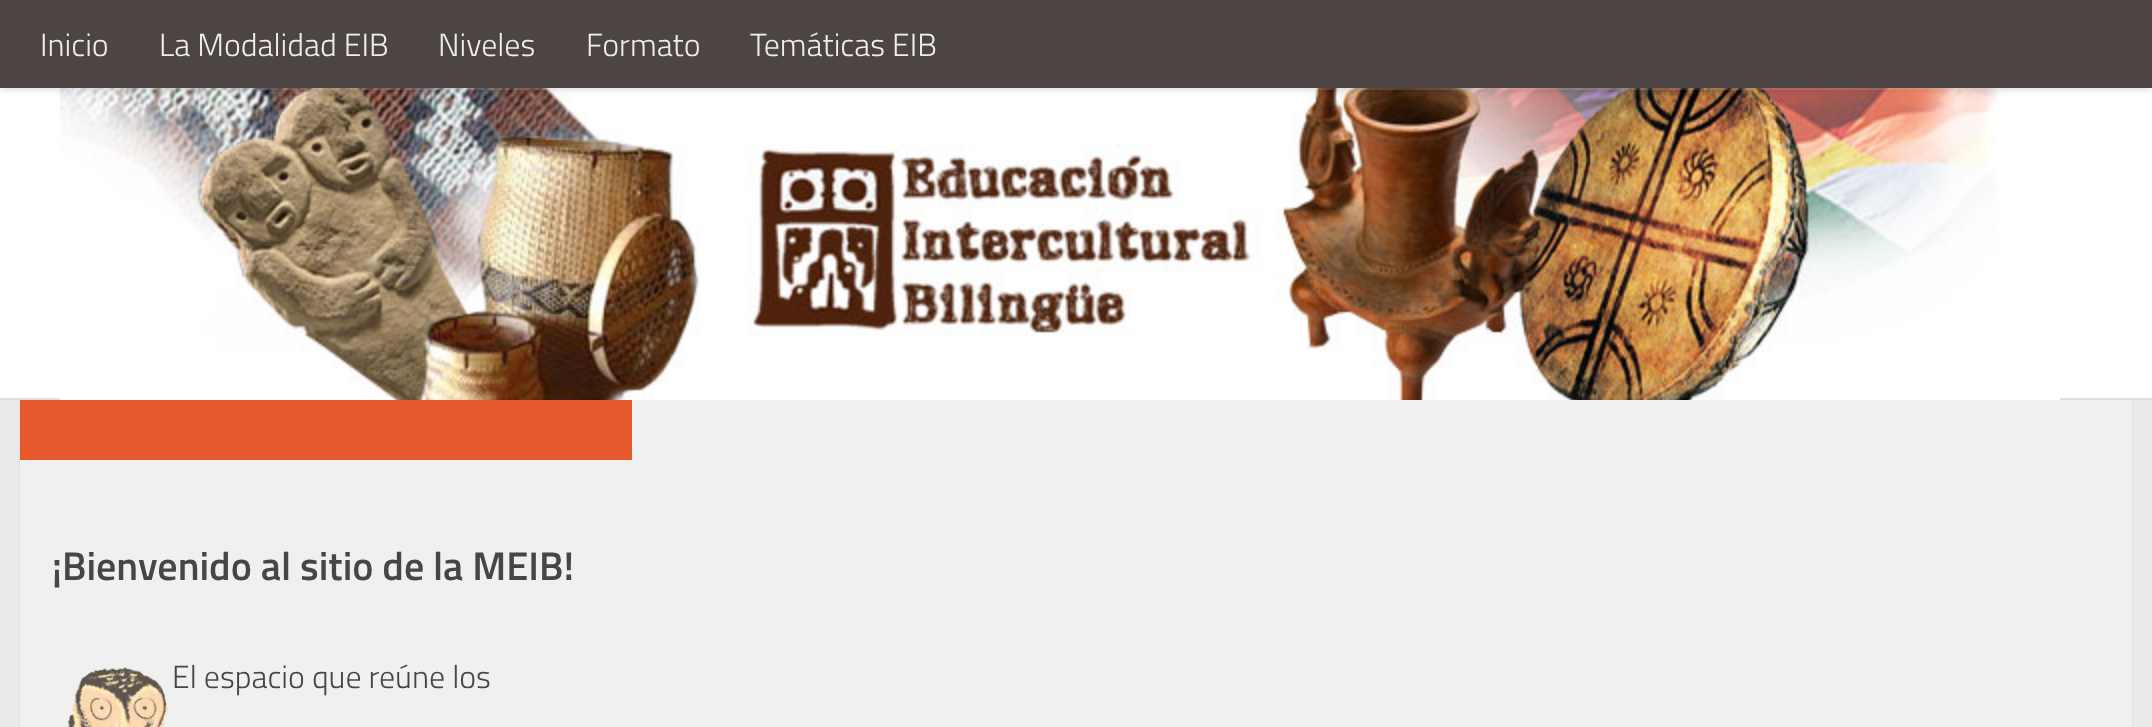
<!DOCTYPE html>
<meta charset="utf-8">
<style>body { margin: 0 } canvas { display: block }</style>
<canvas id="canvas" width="2152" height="727"></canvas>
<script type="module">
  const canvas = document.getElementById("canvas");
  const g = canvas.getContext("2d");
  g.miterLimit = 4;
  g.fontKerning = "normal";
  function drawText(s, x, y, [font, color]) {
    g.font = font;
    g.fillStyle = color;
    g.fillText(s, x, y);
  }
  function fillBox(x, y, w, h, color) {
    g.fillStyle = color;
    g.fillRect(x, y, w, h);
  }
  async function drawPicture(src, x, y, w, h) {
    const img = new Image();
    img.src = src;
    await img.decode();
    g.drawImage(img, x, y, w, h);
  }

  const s1 = ["300 32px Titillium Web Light", "#EEEEEE"];
  const s2 = ["600 40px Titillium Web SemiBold", "#464646"];
  const s3 = ["300 32px Titillium Web Light", "#464646"];

  fillBox(0, 0, 2152, 727, "#EAEAEA");
  fillBox(0, 88, 2152, 310, "#FFFFFF");
  fillBox(0, 398, 2152, 2, "#E0E0E0");
  await drawPicture("pic1.png", 60, 88, 2000, 312);
  fillBox(60, 88, 1934, 2, "rgba(255, 255, 255, 0.15)");
  g.fillStyle = "rgba(0, 0, 0, 0.2)";
  g.filter = "blur(5px)";
  g.beginPath();
  g.rect(0, 0, 2152, 88);
  g.fill();
  g.filter = "none";
  fillBox(0, 0, 2152, 88, "#4D4444");
  drawText("Inicio", 40, 56, s1);
  drawText("La Modalidad EIB", 159, 56, s1);
  drawText("Niveles", 438, 56, s1);
  drawText("Formato", 586, 56, s1);
  drawText("Temáticas EIB", 750, 56, s1);
  g.fillStyle = "rgba(0, 0, 0, 0.1)";
  g.filter = "blur(1px)";
  g.beginPath();
  g.rect(20, 402, 2112, 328);
  g.fill();
  g.filter = "none";
  fillBox(20, 400, 2112, 327, "#F0F0F0");
  fillBox(20, 400, 612, 60, "#E6592D");
  drawText("¡Bienvenido al sitio de la MEIB!", 52, 580, s2);
  await drawPicture("pic2.png", 68, 667, 101, 60);
  drawText("El espacio que reúne los", 172, 688, s3);
</script>
